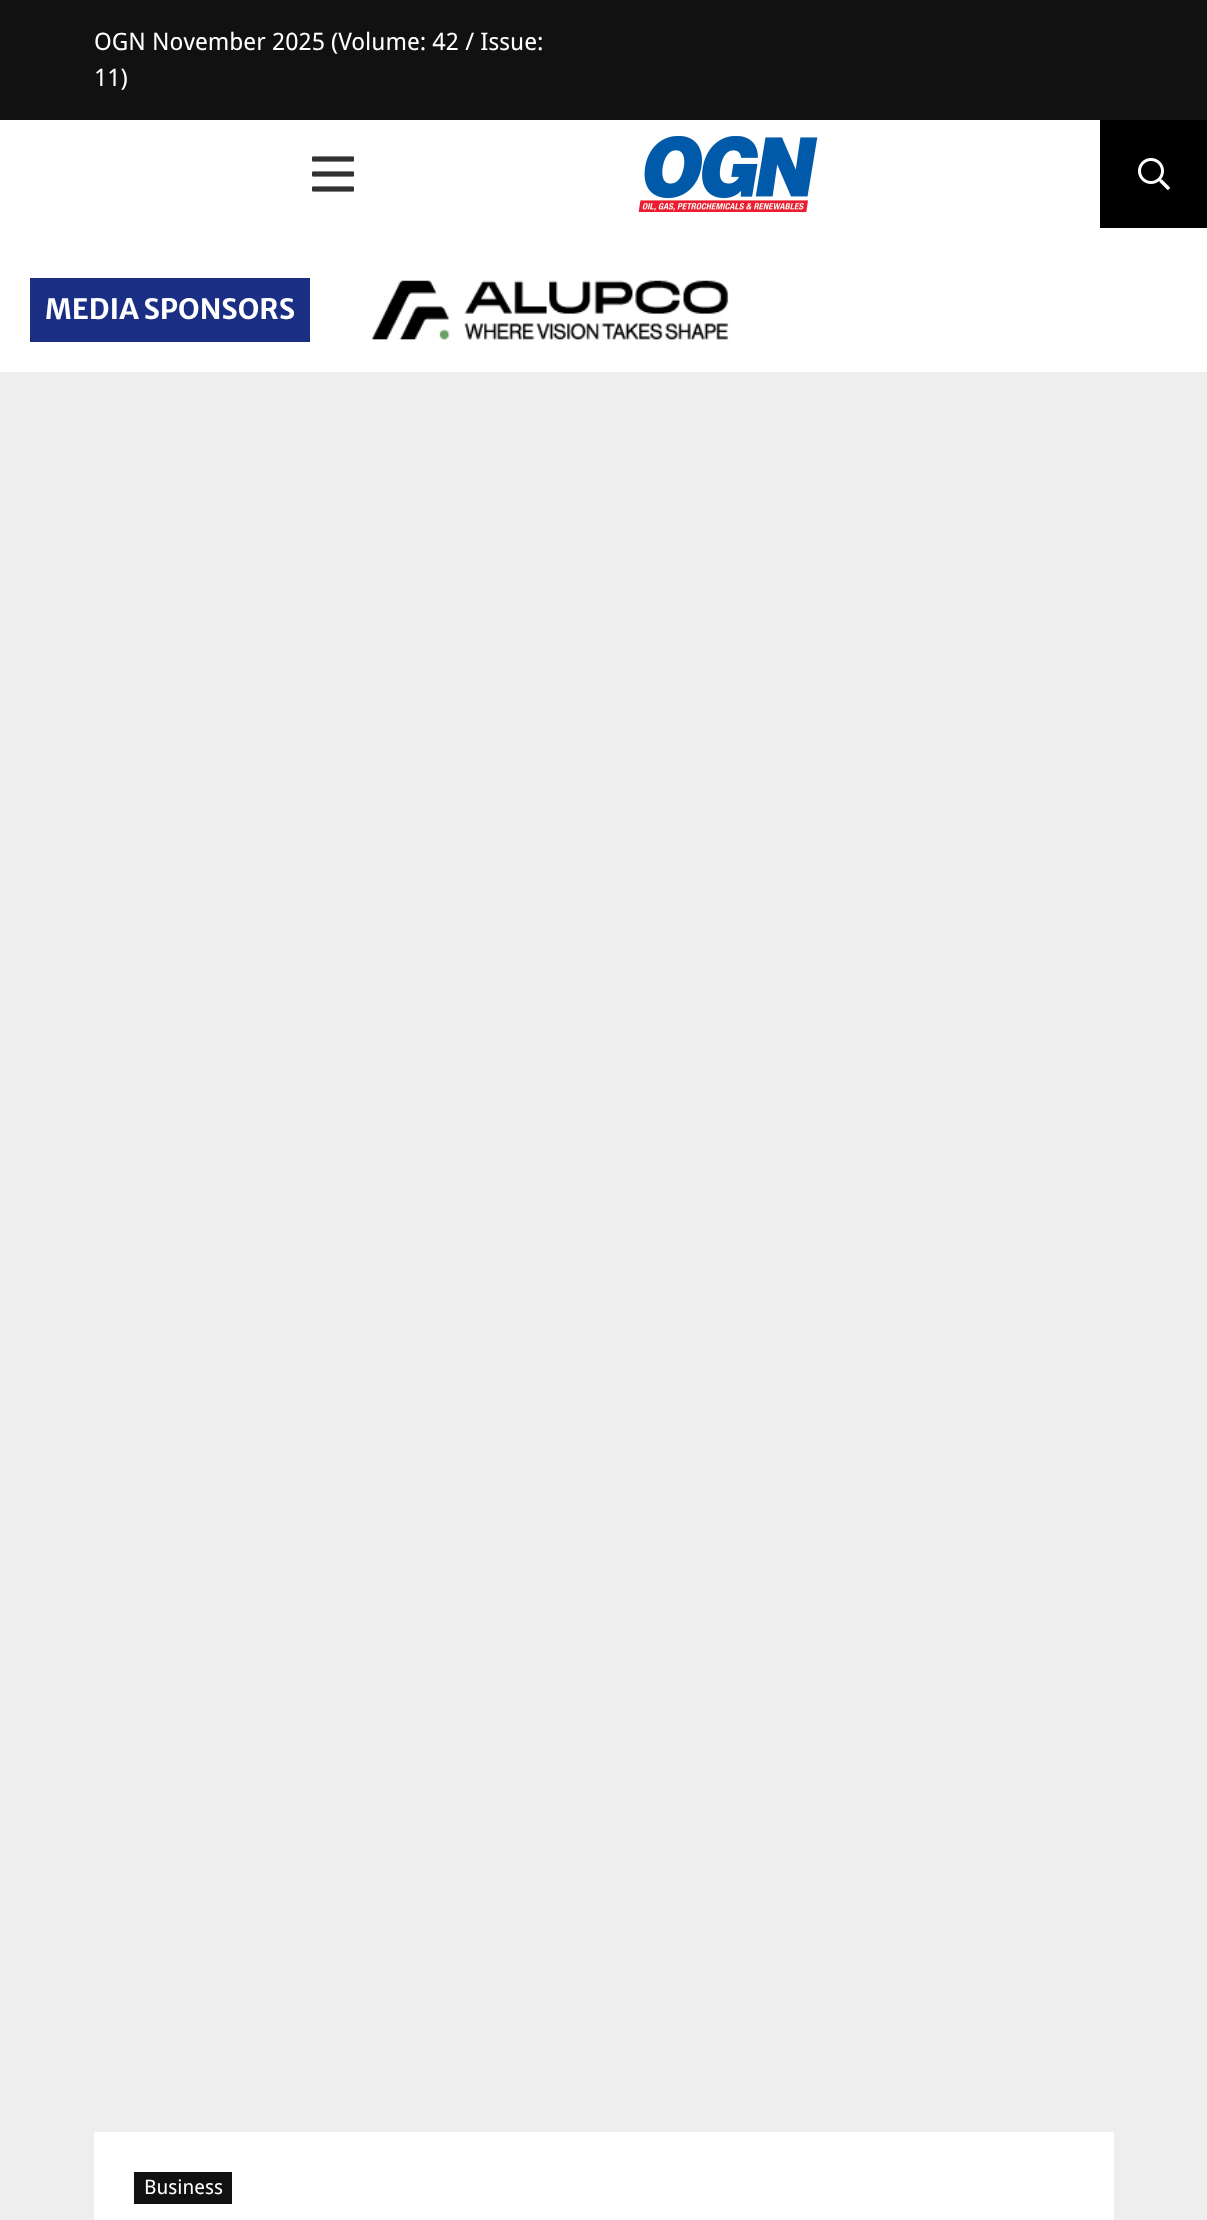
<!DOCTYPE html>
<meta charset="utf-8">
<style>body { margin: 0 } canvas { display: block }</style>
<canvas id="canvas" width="1207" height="2220"></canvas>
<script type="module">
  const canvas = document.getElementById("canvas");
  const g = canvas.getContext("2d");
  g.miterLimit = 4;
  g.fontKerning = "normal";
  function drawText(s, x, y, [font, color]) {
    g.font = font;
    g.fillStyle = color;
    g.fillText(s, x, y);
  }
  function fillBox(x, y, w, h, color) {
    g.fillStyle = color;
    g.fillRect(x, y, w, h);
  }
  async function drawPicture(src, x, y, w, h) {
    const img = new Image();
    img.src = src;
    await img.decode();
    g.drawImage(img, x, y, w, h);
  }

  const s1 = ["24px Droid Sans", "#FFFFFF"];
  const s2 = ["bold 28px Merriweather Sans", "#FFFFFF"];
  const s3 = ["20px Droid Sans", "#FFFFFF"];

  fillBox(0, 0, 1207, 2220, "#FFFFFF");
  fillBox(0, 0, 1207, 120, "#111111");
  drawText("OGN November 2025 (Volume: 42 / Issue:", 94, 50, s1);
  drawText("11)", 94, 86, s1);
  await drawPicture("pic1.png", 312, 156, 42, 36);
  await drawPicture("pic2.png", 638, 136, 180, 76);
  fillBox(1100, 120, 107, 108, "#000000");
  await drawPicture("pic3.png", 1138, 158, 32, 32);
  fillBox(30, 278, 280, 64, "#1A2E84");
  drawText("MEDIA SPONSORS", 45, 319, s2);
  await drawPicture("pic4.png", 372, 280, 357, 60);
  fillBox(0, 372, 1207, 1848, "#EEEEEE");
  fillBox(94, 2132, 1020, 88, "#FFFFFF");
  fillBox(134, 2172, 98, 32, "#111111");
  drawText("Business", 144, 2194, s3);
</script>
